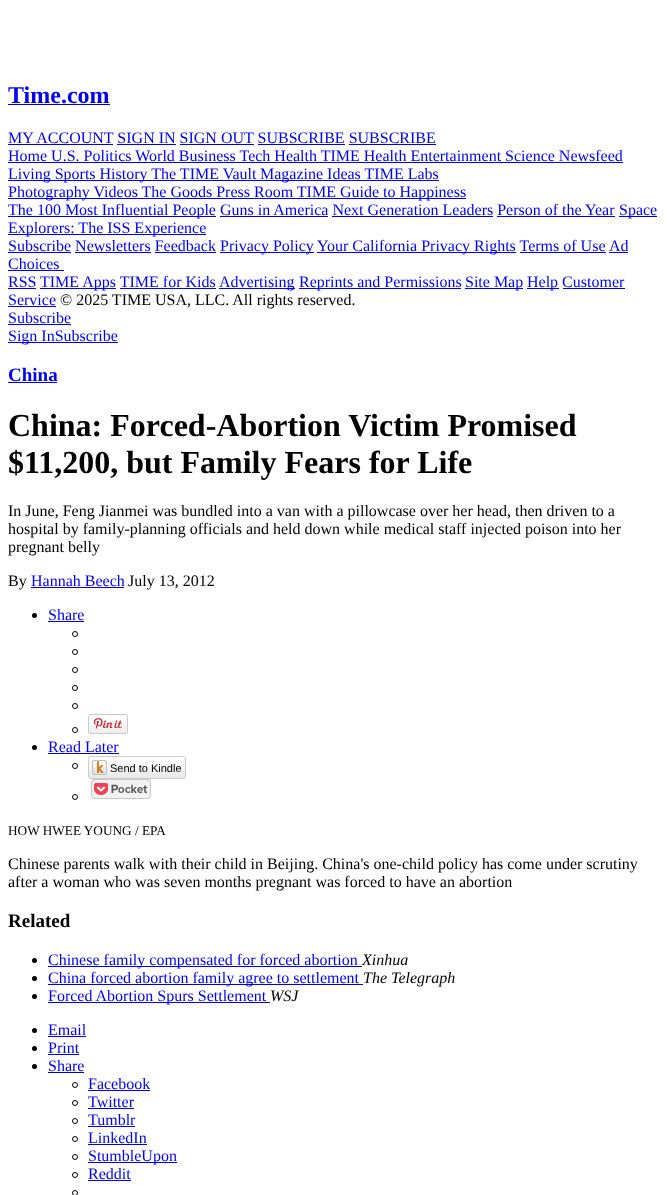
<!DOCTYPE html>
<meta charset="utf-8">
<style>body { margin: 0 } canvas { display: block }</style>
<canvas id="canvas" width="670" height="1195"></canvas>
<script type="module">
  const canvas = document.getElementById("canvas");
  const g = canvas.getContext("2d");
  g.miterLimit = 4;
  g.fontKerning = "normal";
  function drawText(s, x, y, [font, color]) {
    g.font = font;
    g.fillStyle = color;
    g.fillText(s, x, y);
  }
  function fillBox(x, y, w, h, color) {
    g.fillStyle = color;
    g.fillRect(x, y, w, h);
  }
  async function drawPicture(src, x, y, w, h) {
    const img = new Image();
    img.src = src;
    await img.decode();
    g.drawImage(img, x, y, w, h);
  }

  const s1 = ["bold 24px Liberation Serif", "#0000EE"];
  const s2 = ["16px Liberation Serif", "#0000EE"];
  const s3 = ["16px Liberation Serif", "#000000"];
  const s4 = ["bold 19px Liberation Serif", "#0000EE"];
  const s5 = ["bold 32px Liberation Serif", "#000000"];
  const s6 = ["11px Liberation Sans", "#000000"];
  const s7 = ["13.25px Liberation Serif", "#000000"];
  const s8 = ["bold 19px Liberation Serif", "#000000"];
  const s9 = ["italic 16px Liberation Serif", "#000000"];

  fillBox(0, 0, 670, 1195, "#FFFFFF");
  drawText("Time.com", 8, 103, s1);
  fillBox(8, 104, 102, 1, "#0000EE");
  drawText("MY ACCOUNT SIGN IN SIGN OUT SUBSCRIBE SUBSCRIBE", 8, 143, s2);
  fillBox(8, 144, 105, 1, "#0000EE");
  fillBox(117, 144, 59, 1, "#0000EE");
  fillBox(180, 144, 74, 1, "#0000EE");
  fillBox(258, 144, 87, 1, "#0000EE");
  fillBox(349, 144, 87, 1, "#0000EE");
  drawText("Home U.S. Politics World Business Tech Health TIME Health Entertainment Science Newsfeed", 8, 161, s2);
  fillBox(8, 162, 615, 1, "#0000EE");
  fillBox(8, 180, 248, 1, "#0000EE");
  drawText("Living Sports History The TIME Vault", 8, 179, s2);
  fillBox(256, 180, 183, 1, "#0000EE");
  drawText("Magazine Ideas TIME Labs", 260, 179, s2);
  fillBox(8, 198, 458, 1, "#0000EE");
  drawText("Photography Videos The Goods Press Room TIME Guide to Happiness", 8, 197, s2);
  fillBox(8, 216, 208, 1, "#0000EE");
  drawText("The 100 Most Influential People Guns in America Next Generation Leaders Person of the Year", 8, 215, s2);
  fillBox(619, 216, 38, 1, "#0000EE");
  drawText("Space", 619, 215, s2);
  fillBox(220, 216, 108, 1, "#0000EE");
  fillBox(332, 216, 161, 1, "#0000EE");
  fillBox(497, 216, 118, 1, "#0000EE");
  fillBox(8, 234, 198, 1, "#0000EE");
  drawText("Explorers: The ISS Experience", 8, 233, s2);
  drawText("Subscribe Newsletters Feedback", 8, 251, s2);
  fillBox(8, 252, 63, 1, "#0000EE");
  fillBox(220, 252, 94, 1, "#0000EE");
  drawText("Privacy Policy", 220, 251, s2);
  fillBox(317, 252, 199, 1, "#0000EE");
  drawText("Your California Privacy Rights Terms of Use", 317, 251, s2);
  drawText("Ad", 609, 251, s2);
  fillBox(609, 252, 19, 1, "#0000EE");
  fillBox(75, 252, 76, 1, "#0000EE");
  fillBox(155, 252, 61, 1, "#0000EE");
  fillBox(520, 252, 86, 1, "#0000EE");
  drawText("Choices", 8, 269, s2);
  fillBox(8, 270, 56, 1, "#0000EE");
  drawText("RSS", 8, 287, s2);
  fillBox(8, 288, 28, 1, "#0000EE");
  fillBox(40, 288, 76, 1, "#0000EE");
  drawText("TIME Apps TIME for Kids", 40, 287, s2);
  fillBox(219, 288, 76, 1, "#0000EE");
  drawText("Advertising", 219, 287, s2);
  fillBox(299, 288, 162, 1, "#0000EE");
  drawText("Reprints and Permissions", 299, 287, s2);
  fillBox(465, 288, 58, 1, "#0000EE");
  drawText("Site Map", 465, 287, s2);
  fillBox(527, 288, 32, 1, "#0000EE");
  drawText("Help Customer", 527, 287, s2);
  fillBox(120, 288, 96, 1, "#0000EE");
  drawText("Service", 8, 305, s2);
  fillBox(563, 288, 62, 1, "#0000EE");
  fillBox(8, 306, 48, 1, "#0000EE");
  drawText("© 2025 TIME USA, LLC. All rights reserved.", 60, 305, s3);
  drawText("Subscribe", 8, 323, s2);
  fillBox(8, 324, 63, 1, "#0000EE");
  fillBox(8, 342, 110, 1, "#0000EE");
  drawText("Sign InSubscribe", 8, 341, s2);
  drawText("China", 8, 381, s4);
  fillBox(8, 382, 49, 1, "#0000EE");
  drawText("China: Forced-Abortion Victim Promised", 8, 436, s5);
  drawText("$11,200, but Family Fears for Life", 8, 473, s5);
  drawText("In June, Feng Jianmei was bundled into a van with a pillowcase over her head, then driven to a", 8, 516, s3);
  drawText("hospital by family-planning officials and held down while medical staff injected poison into her", 8, 534, s3);
  drawText("pregnant belly", 8, 552, s3);
  drawText("By", 8, 586, s3);
  fillBox(31, 587, 93, 1, "#0000EE");
  drawText("Hannah Beech", 31, 586, s2);
  drawText("July 13, 2012", 128, 586, s3);
  g.beginPath();
  g.arc(34.5, 615.5, 2.5, 0, Math.PI * 2);
  g.fill();
  drawText("Share", 48, 620, s2);
  fillBox(48, 621, 36, 1, "#0000EE");
  g.beginPath();
  g.arc(75, 634, 2.5, 0, Math.PI * 2);
  g.strokeStyle = "#000000";
  g.stroke();
  g.beginPath();
  g.arc(75, 652, 2.5, 0, Math.PI * 2);
  g.stroke();
  g.beginPath();
  g.arc(75, 670, 2.5, 0, Math.PI * 2);
  g.stroke();
  g.beginPath();
  g.arc(75, 688, 2.5, 0, Math.PI * 2);
  g.stroke();
  g.beginPath();
  g.arc(75, 706, 2.5, 0, Math.PI * 2);
  g.stroke();
  g.beginPath();
  g.arc(75, 730, 2.5, 0, Math.PI * 2);
  g.stroke();
  await drawPicture("pic1.png", 88, 714, 40, 20);
  g.fillStyle = "#000000";
  g.beginPath();
  g.arc(34.5, 747.5, 2.5, 0, Math.PI * 2);
  g.fill();
  drawText("Read Later", 48, 752, s2);
  fillBox(48, 753, 71, 1, "#0000EE");
  g.beginPath();
  g.arc(75, 766, 2.5, 0, Math.PI * 2);
  g.stroke();
  await drawPicture("pic2.png", 88, 761, 98, 17);
  g.beginPath();
  g.roundRect(88.5, 756.5, 97, 22, 2.5);
  g.strokeStyle = "#CCCCCC";
  g.stroke();
  await drawPicture("pic3.png", 92, 760, 15, 15);
  drawText("Send to Kindle", 110, 772, s6);
  g.beginPath();
  g.arc(75, 797, 2.5, 0, Math.PI * 2);
  g.strokeStyle = "#000000";
  g.stroke();
  await drawPicture("pic4.png", 91, 779, 60, 20);
  drawText("HOW HWEE YOUNG / EPA", 8, 835, s7);
  drawText("Chinese parents walk with their child in Beijing. China's one-child policy has come under scrutiny", 8, 869, s3);
  drawText("after a woman who was seven months pregnant was forced to have an abortion", 8, 887, s3);
  drawText("Related", 8, 927, s8);
  g.beginPath();
  g.arc(34.5, 960.5, 2.5, 0, Math.PI * 2);
  g.fill();
  fillBox(48, 966, 314, 1, "#0000EE");
  drawText("Chinese family compensated for forced abortion", 48, 965, s2);
  drawText("Xinhua", 362, 965, s9);
  g.beginPath();
  g.arc(34.5, 978.5, 2.5, 0, Math.PI * 2);
  g.fill();
  fillBox(48, 984, 315, 1, "#0000EE");
  drawText("China forced abortion family agree to settlement", 48, 983, s2);
  drawText("The Telegraph", 363, 983, s9);
  g.beginPath();
  g.arc(34.5, 996.5, 2.5, 0, Math.PI * 2);
  g.fill();
  fillBox(48, 1002, 222, 1, "#0000EE");
  drawText("Forced Abortion Spurs Settlement", 48, 1001, s2);
  drawText("WSJ", 270, 1001, s9);
  g.beginPath();
  g.arc(34.5, 1030.5, 2.5, 0, Math.PI * 2);
  g.fill();
  drawText("Email", 48, 1035, s2);
  fillBox(48, 1036, 38, 1, "#0000EE");
  g.fillStyle = "#000000";
  g.beginPath();
  g.arc(34.5, 1048.5, 2.5, 0, Math.PI * 2);
  g.fill();
  drawText("Print", 48, 1053, s2);
  fillBox(48, 1054, 31, 1, "#0000EE");
  g.fillStyle = "#000000";
  g.beginPath();
  g.arc(34.5, 1066.5, 2.5, 0, Math.PI * 2);
  g.fill();
  drawText("Share", 48, 1071, s2);
  fillBox(48, 1072, 36, 1, "#0000EE");
  g.beginPath();
  g.arc(75, 1085, 2.5, 0, Math.PI * 2);
  g.stroke();
  drawText("Facebook", 88, 1089, s2);
  fillBox(88, 1090, 62, 1, "#0000EE");
  g.beginPath();
  g.arc(75, 1103, 2.5, 0, Math.PI * 2);
  g.stroke();
  drawText("Twitter", 88, 1107, s2);
  fillBox(88, 1108, 46, 1, "#0000EE");
  g.beginPath();
  g.arc(75, 1121, 2.5, 0, Math.PI * 2);
  g.stroke();
  drawText("Tumblr", 88, 1125, s2);
  fillBox(88, 1126, 47, 1, "#0000EE");
  g.beginPath();
  g.arc(75, 1139, 2.5, 0, Math.PI * 2);
  g.stroke();
  drawText("LinkedIn", 88, 1143, s2);
  fillBox(88, 1144, 59, 1, "#0000EE");
  g.beginPath();
  g.arc(75, 1157, 2.5, 0, Math.PI * 2);
  g.stroke();
  fillBox(88, 1162, 89, 1, "#0000EE");
  drawText("StumbleUpon", 88, 1161, s2);
  g.beginPath();
  g.arc(75, 1175, 2.5, 0, Math.PI * 2);
  g.stroke();
  drawText("Reddit", 88, 1179, s2);
  fillBox(88, 1180, 43, 1, "#0000EE");
  g.beginPath();
  g.arc(75, 1193, 2.5, 0, Math.PI * 2);
  g.stroke();
</script>
